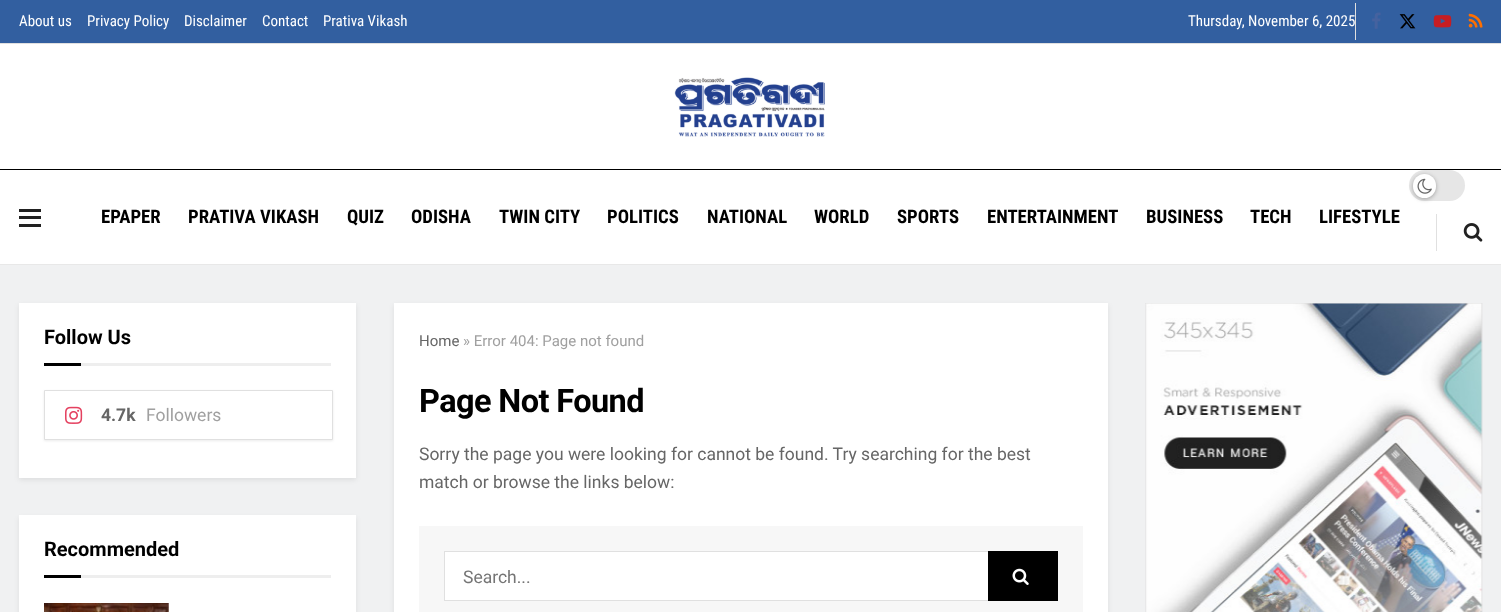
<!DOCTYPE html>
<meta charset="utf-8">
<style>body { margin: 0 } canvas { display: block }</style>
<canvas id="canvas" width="1501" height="612"></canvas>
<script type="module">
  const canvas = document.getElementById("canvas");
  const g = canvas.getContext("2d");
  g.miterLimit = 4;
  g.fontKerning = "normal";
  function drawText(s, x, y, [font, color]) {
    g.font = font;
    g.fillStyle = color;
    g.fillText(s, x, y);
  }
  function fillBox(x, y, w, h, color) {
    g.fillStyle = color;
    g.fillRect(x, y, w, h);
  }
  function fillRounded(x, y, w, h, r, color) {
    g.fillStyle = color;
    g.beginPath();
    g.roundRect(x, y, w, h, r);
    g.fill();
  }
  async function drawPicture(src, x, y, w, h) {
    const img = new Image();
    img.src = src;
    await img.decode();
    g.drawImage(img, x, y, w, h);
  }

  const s1 = ["15px Roboto Condensed", "#FFFFFF"];
  const s2 = ["bold 18.75px Roboto Condensed", "#000000"];
  const s3 = ["bold 20px Roboto", "#000000"];
  const s4 = ["bold 17.5px Roboto", "#666666"];
  const s5 = ["17.5px Roboto", "#A0A0A0"];
  const s6 = ["15px Roboto", "#666666"];
  const s7 = ["15px Roboto", "#A0A0A0"];
  const s8 = ["bold 32.5px Roboto", "#000000"];
  const s9 = ["17.5px Roboto", "#666666"];
  const s10 = ["17.5px Roboto", "#757575"];

  fillBox(0, 0, 1501, 612, "#FFFFFF");
  fillBox(0, 0, 1501, 43, "#325FA0");
  fillBox(0, 43, 1501, 1, "#E0E0E0");
  drawText("About us", 19, 26, s1);
  drawText("Privacy Policy", 87, 26, s1);
  drawText("Disclaimer", 184, 26, s1);
  drawText("Contact", 262, 26, s1);
  drawText("Prativa Vikash", 323, 26, s1);
  drawText("Thursday, November 6, 2025", 1188, 26, s1);
  fillBox(1355, 3, 1, 37, "#E0E0E0");
  await drawPicture("pic1.png", 1372, 12, 9, 17);
  await drawPicture("pic2.png", 1399, 14, 17, 15);
  await drawPicture("pic3.png", 1433, 15, 19, 13);
  await drawPicture("pic4.png", 1468, 13, 15, 15);
  await drawPicture("pic5.png", 674, 77, 151, 60);
  fillBox(0, 169, 1501, 1, "#000000");
  fillBox(0, 264, 1501, 1, "#E8E8E8");
  fillBox(19, 209, 22, 3, "#212121");
  fillBox(19, 216, 22, 3, "#212121");
  fillBox(19, 224, 22, 3, "#212121");
  drawText("EPAPER", 101, 223, s2);
  drawText("PRATIVA VIKASH", 188, 223, s2);
  drawText("QUIZ", 347, 223, s2);
  drawText("ODISHA", 411, 223, s2);
  drawText("TWIN CITY", 499, 223, s2);
  drawText("POLITICS", 607, 223, s2);
  drawText("NATIONAL", 707, 223, s2);
  drawText("WORLD", 814, 223, s2);
  drawText("SPORTS", 897, 223, s2);
  drawText("ENTERTAINMENT", 987, 223, s2);
  drawText("BUSINESS", 1146, 223, s2);
  drawText("TECH", 1250, 223, s2);
  drawText("LIFESTYLE", 1319, 223, s2);
  fillRounded(1409, 170, 56, 31, 15.5, "#E6E6E6");
  g.fillStyle = "rgba(0, 0, 0, 0.3)";
  g.filter = "blur(2px)";
  g.beginPath();
  g.roundRect(1413, 175, 23, 24, 11.5);
  g.fill();
  g.filter = "none";
  fillRounded(1413, 174, 23, 24, 11.5, "#FFFFFF");
  await drawPicture("pic6.png", 1417, 178, 15, 16);
  fillBox(1436, 214, 1, 37, "#E0E0E0");
  await drawPicture("pic7.png", 1463, 223, 20, 19);
  fillBox(0, 265, 1501, 347, "#F0F1F2");
  g.fillStyle = "rgba(0, 0, 0, 0.08)";
  g.filter = "blur(2.5px)";
  g.beginPath();
  g.rect(19, 305, 337, 175);
  g.fill();
  g.filter = "none";
  fillBox(19, 303, 337, 175, "#FFFFFF");
  fillBox(81, 363, 250, 3, "#EEEEEE");
  drawText("Follow Us", 44, 344, s3);
  fillBox(44, 363, 37, 3, "#000000");
  g.fillStyle = "rgba(0, 0, 0, 0.08)";
  g.filter = "blur(1px)";
  g.beginPath();
  g.rect(44, 391, 289, 50);
  g.fill();
  g.filter = "none";
  g.fillStyle = "#FFFFFF";
  g.beginPath();
  g.rect(44.5, 390.5, 288, 49);
  g.fill();
  g.strokeStyle = "#E0E0E0";
  g.stroke();
  await drawPicture("pic8.png", 65, 406, 18, 18);
  drawText("4.7k", 101, 421, s4);
  drawText("Followers", 146, 421, s5);
  g.fillStyle = "rgba(0, 0, 0, 0.08)";
  g.filter = "blur(2.5px)";
  g.beginPath();
  g.rect(19, 518, 337, 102);
  g.fill();
  g.filter = "none";
  fillBox(19, 515, 337, 97, "#FFFFFF");
  fillBox(81, 575, 250, 3, "#EEEEEE");
  drawText("Recommended", 44, 556, s3);
  fillBox(44, 575, 37, 3, "#000000");
  await drawPicture("pic9.png", 44, 603, 125, 9);
  g.fillStyle = "rgba(0, 0, 0, 0.08)";
  g.filter = "blur(2.5px)";
  g.beginPath();
  g.rect(394, 305, 714, 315);
  g.fill();
  g.filter = "none";
  fillBox(394, 303, 714, 309, "#FFFFFF");
  drawText("Home", 419, 346, s6);
  drawText("» Error 404: Page not found", 463, 346, s7);
  g.letterSpacing = "-0.6px";
  drawText("Page Not Found", 419, 412, s8);
  g.letterSpacing = "0px";
  drawText("Sorry the page you were looking for cannot be found. Try searching for the best", 419, 460, s9);
  drawText("match or browse the links below:", 419, 488, s9);
  fillBox(419, 526, 664, 86, "#F7F7F7");
  fillBox(445, 552, 543, 48, "#FFFFFF");
  g.strokeRect(444.5, 551.5, 613, 49);
  drawText("Search...", 463, 583, s10);
  fillBox(988, 551, 70, 50, "#000000");
  await drawPicture("pic10.png", 1012, 568, 17, 17);
  await drawPicture("pic11.png", 1145, 303, 338, 309);
</script>
